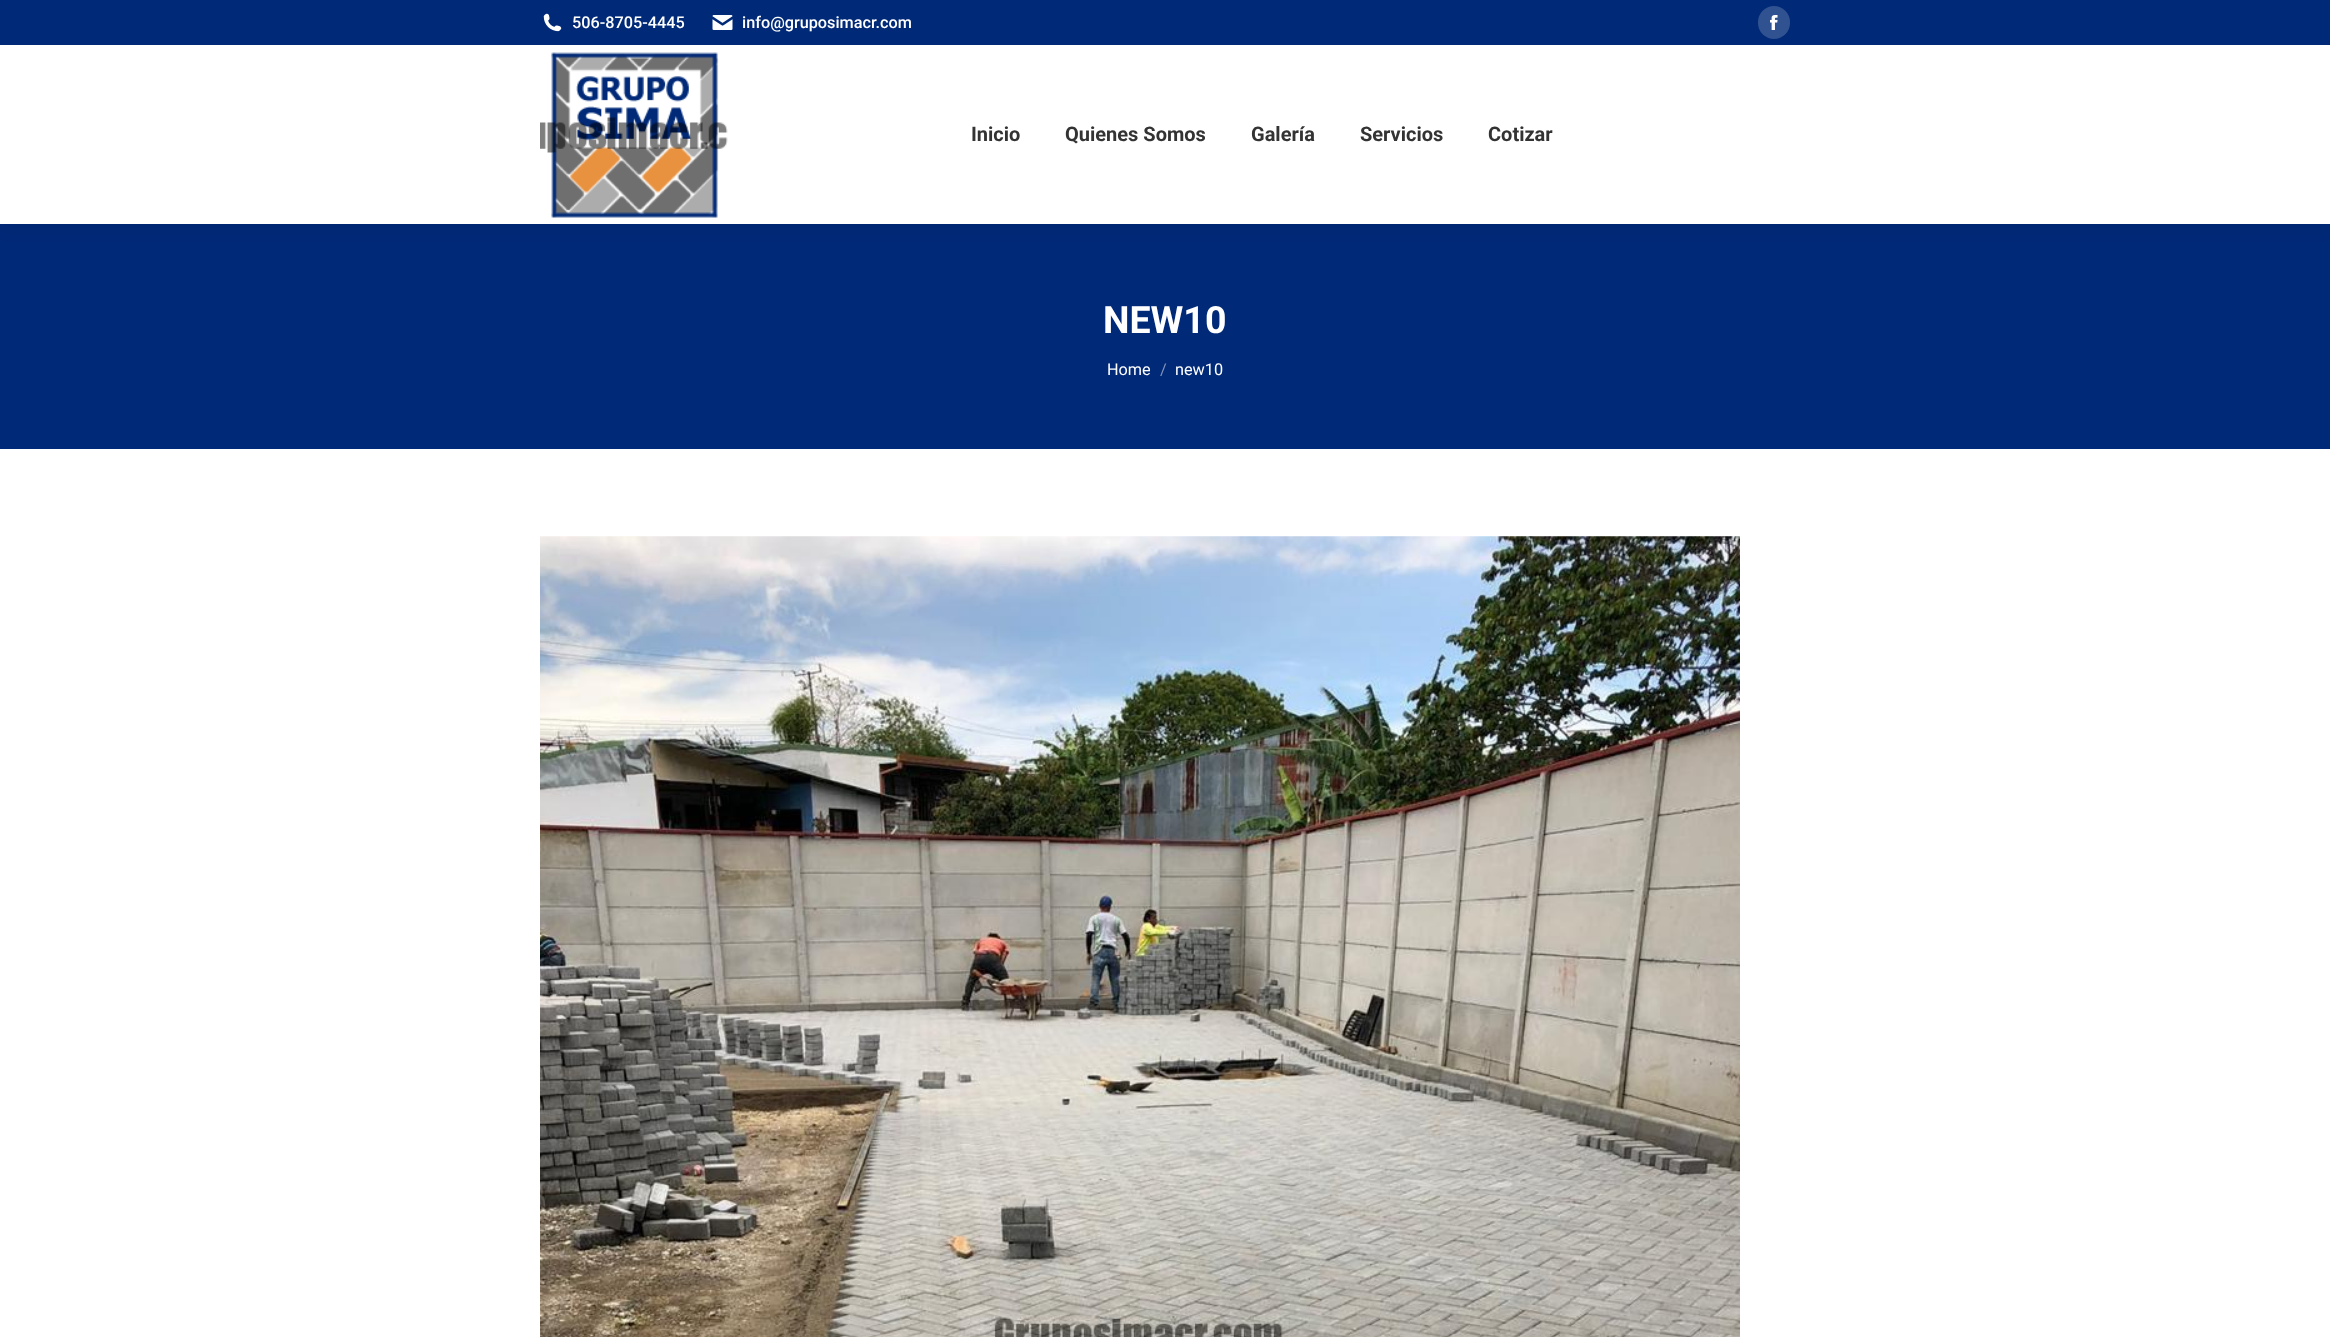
<!DOCTYPE html>
<meta charset="utf-8">
<style>body { margin: 0 } canvas { display: block }</style>
<canvas id="canvas" width="2330" height="1337"></canvas>
<script type="module">
  const canvas = document.getElementById("canvas");
  const g = canvas.getContext("2d");
  g.miterLimit = 4;
  g.fontKerning = "normal";
  function drawText(s, x, y, [font, color]) {
    g.font = font;
    g.fillStyle = color;
    g.fillText(s, x, y);
  }
  function fillBox(x, y, w, h, color) {
    g.fillStyle = color;
    g.fillRect(x, y, w, h);
  }
  function fillRounded(x, y, w, h, r, color) {
    g.fillStyle = color;
    g.beginPath();
    g.roundRect(x, y, w, h, r);
    g.fill();
  }
  async function drawPicture(src, x, y, w, h) {
    const img = new Image();
    img.src = src;
    await img.decode();
    g.drawImage(img, x, y, w, h);
  }

  const s1 = ["500 16.25px Roboto", "#FFFFFF"];
  const s2 = ["bold 20px Roboto", "#333333"];
  const s3 = ["bold 37.5px Roboto", "#FFFFFF"];
  const s4 = ["16.25px Roboto", "#FFFFFF"];
  const s5 = ["16.25px Roboto", "#8094BB"];

  fillBox(0, 0, 2330, 1337, "#FFFFFF");
  fillBox(0, 224, 2330, 225, "#002977");
  g.fillStyle = "rgba(0, 0, 0, 0.07)";
  g.filter = "blur(9.5px)";
  g.beginPath();
  g.rect(-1, -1, 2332, 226);
  g.fill();
  g.filter = "none";
  fillBox(0, 45, 2330, 179, "#FFFFFF");
  fillBox(0, 0, 2330, 45, "#002977");
  await drawPicture("pic1.png", 543, 13, 19, 19);
  drawText("506-8705-4445", 572, 28, s1);
  await drawPicture("pic2.png", 712, 15, 21, 15);
  drawText("info@gruposimacr.com", 742, 28, s1);
  fillRounded(1758, 6, 32, 33, 16, "#305291");
  await drawPicture("pic3.png", 1770, 15, 8, 15);
  await drawPicture("pic4.png", 540, 52, 188, 166);
  drawText("Inicio", 971, 141, s2);
  drawText("Quienes Somos", 1065, 141, s2);
  drawText("Galería", 1251, 141, s2);
  drawText("Servicios", 1360, 141, s2);
  drawText("Cotizar", 1488, 141, s2);
  drawText("NEW10", 1103, 333, s3);
  drawText("Home", 1107, 375, s4);
  drawText("/", 1160, 375, s5);
  drawText("new10", 1175, 375, s4);
  await drawPicture("pic5.png", 540, 536, 1200, 801);
</script>
